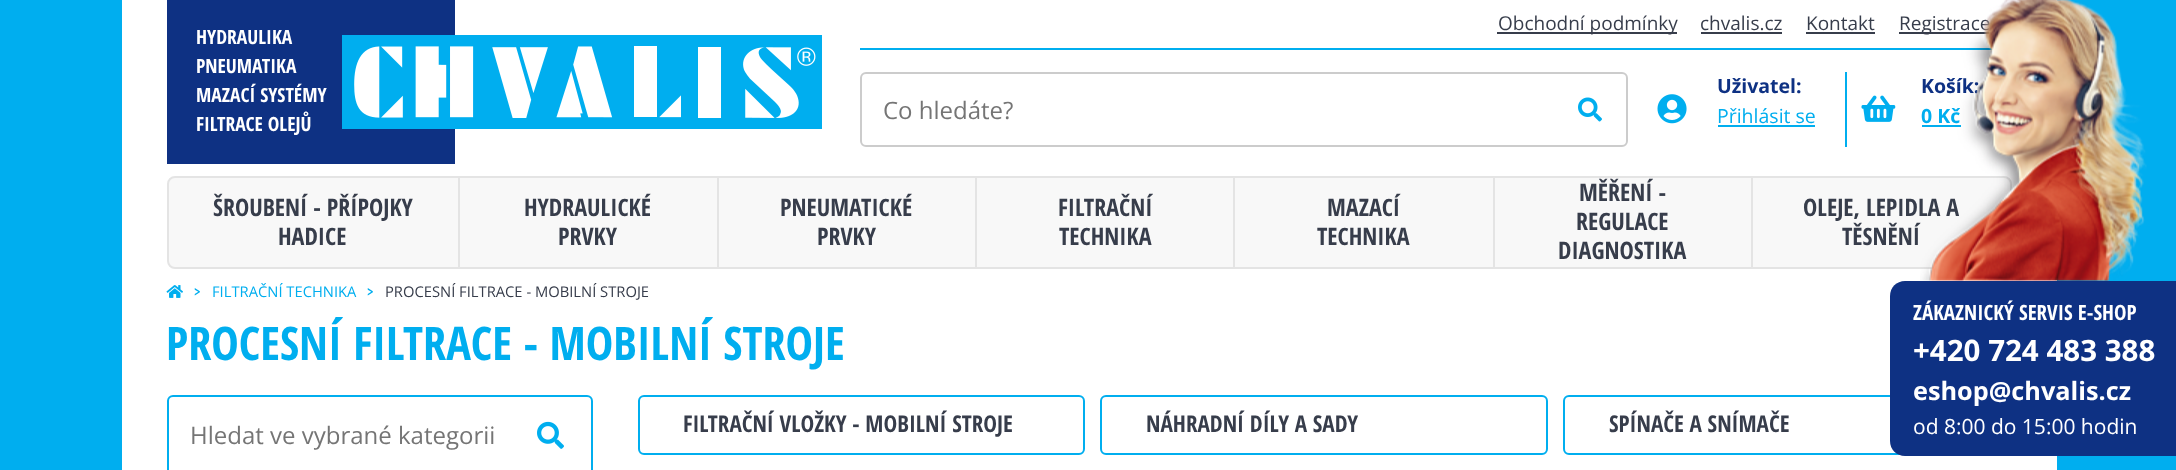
<!DOCTYPE html>
<meta charset="utf-8">
<style>body { margin: 0 } canvas { display: block }</style>
<canvas id="canvas" width="2176" height="470"></canvas>
<script type="module">
  const canvas = document.getElementById("canvas");
  const g = canvas.getContext("2d");
  g.miterLimit = 4;
  g.fontKerning = "normal";
  function drawText(s, x, y, [font, color]) {
    g.font = font;
    g.fillStyle = color;
    g.fillText(s, x, y);
  }
  function fillBox(x, y, w, h, color) {
    g.fillStyle = color;
    g.fillRect(x, y, w, h);
  }
  async function drawPicture(src, x, y, w, h) {
    const img = new Image();
    img.src = src;
    await img.decode();
    g.drawImage(img, x, y, w, h);
  }

  const s1 = ["bold 19.5px Open Sans Condensed", "#FFFFFF"];
  const s2 = ["19px Open Sans", "#373D4B"];
  const s3 = ["24px Open Sans", "#757575"];
  const s4 = ["bold 19.5px Open Sans", "#0E3183"];
  const s5 = ["19.5px Open Sans", "#00AEEF"];
  const s6 = ["bold 19.5px Open Sans", "#00AEEF"];
  const s7 = ["bold 24px Open Sans Condensed", "#373D4B"];
  const s8 = ["bold 14.75px Open Sans Condensed", "#00AEEF"];
  const s9 = ["14.75px Open Sans", "#00AEEF"];
  const s10 = ["14.75px Open Sans", "#373D4B"];
  const s11 = ["bold 46.25px Open Sans Condensed", "#00AEEF"];
  const s12 = ["bold 23.1px Open Sans Condensed", "#373D4B"];
  const s13 = ["bold 21px Open Sans Condensed", "#FFFFFF"];
  const s14 = ["bold 29.5px Open Sans", "#FFFFFF"];
  const s15 = ["bold 25.25px Open Sans", "#FFFFFF"];
  const s16 = ["21px Open Sans", "#FFFFFF"];

  fillBox(0, 0, 2176, 470, "#00AEEF");
  fillBox(122, 0, 1935, 470, "#FFFFFF");
  fillBox(167, 0, 288, 164, "#0E3183");
  drawText("HYDRAULIKA", 196, 44, s1);
  drawText("PNEUMATIKA", 196, 73, s1);
  drawText("MAZACÍ SYSTÉMY", 196, 102, s1);
  drawText("FILTRACE OLEJŮ", 196, 131, s1);
  await drawPicture("pic1.png", 342, 35, 480, 94);
  fillBox(860, 48, 1133, 2, "#00AEEF");
  fillBox(1497, 32, 180, 2, "#373D4B");
  drawText("Obchodní podmínky", 1498, 30, s2);
  drawText("chvalis.cz", 1700, 30, s2);
  fillBox(1701, 32, 81, 2, "#373D4B");
  drawText("Kontakt", 1806, 30, s2);
  fillBox(1806, 32, 69, 2, "#373D4B");
  fillBox(1899, 32, 92, 2, "#373D4B");
  drawText("Registrace", 1899, 30, s2);
  g.beginPath();
  g.roundRect(861, 73, 766, 73, 5);
  g.strokeStyle = "#CCCCCC";
  g.lineWidth = 2;
  g.stroke();
  drawText("Co hledáte?", 883, 119, s3);
  await drawPicture("pic2.png", 1578, 97, 24, 25);
  drawText("Uživatel:", 1717, 93, s4);
  await drawPicture("pic3.png", 1657, 94, 30, 30);
  drawText("Přihlásit se", 1717, 123, s5);
  fillBox(1718, 125, 97, 2, "#00AEEF");
  fillBox(1845, 72, 2, 75, "#00AEEF");
  drawText("Košík:", 1921, 93, s4);
  await drawPicture("pic4.png", 1861, 95, 35, 27);
  drawText("0 Kč", 1921, 123, s6);
  fillBox(1922, 125, 39, 2, "#00AEEF");
  g.fillStyle = "#F8F8F8";
  g.beginPath();
  g.roundRect(168, 177, 1843, 91, 7);
  g.fill();
  g.strokeStyle = "#E4E4E4";
  g.stroke();
  drawText("ŠROUBENÍ - PŘÍPOJKY", 213, 216, s7);
  drawText("HADICE", 278, 245, s7);
  fillBox(458, 177, 2, 90, "#E4E4E4");
  drawText("HYDRAULICKÉ", 524, 216, s7);
  drawText("PRVKY", 558, 245, s7);
  fillBox(717, 177, 2, 90, "#E4E4E4");
  drawText("PNEUMATICKÉ", 780, 216, s7);
  drawText("PRVKY", 817, 245, s7);
  fillBox(975, 177, 2, 90, "#E4E4E4");
  drawText("FILTRAČNÍ", 1058, 216, s7);
  drawText("TECHNIKA", 1059, 245, s7);
  fillBox(1233, 177, 2, 90, "#E4E4E4");
  drawText("MAZACÍ", 1327, 216, s7);
  drawText("TECHNIKA", 1317, 245, s7);
  fillBox(1493, 177, 2, 90, "#E4E4E4");
  drawText("MĚŘENÍ -", 1579, 201, s7);
  drawText("REGULACE", 1576, 230, s7);
  drawText("DIAGNOSTIKA", 1558, 259, s7);
  fillBox(1751, 177, 2, 90, "#E4E4E4");
  drawText("OLEJE, LEPIDLA A", 1803, 216, s7);
  drawText("TĚSNĚNÍ", 1842, 245, s7);
  await drawPicture("pic5.png", 166, 285, 17, 13);
  drawText(">", 194, 297, s8);
  drawText("FILTRAČNÍ TECHNIKA", 212, 297, s9);
  drawText(">", 367, 297, s8);
  drawText("PROCESNÍ FILTRACE - MOBILNÍ STROJE", 385, 297, s10);
  drawText("PROCESNÍ FILTRACE - MOBILNÍ STROJE", 166, 360, s11);
  g.beginPath();
  g.roundRect(168, 396, 424, 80, 5);
  g.strokeStyle = "#00AEEF";
  g.stroke();
  drawText("Hledat ve vybrané kategorii", 190, 444, s3);
  await drawPicture("pic6.png", 537, 421, 27, 28);
  g.beginPath();
  g.roundRect(639, 396, 445, 58, 5);
  g.stroke();
  drawText("FILTRAČNÍ VLOŽKY - MOBILNÍ STROJE", 683, 432, s12);
  g.beginPath();
  g.roundRect(1101, 396, 446, 58, 5);
  g.stroke();
  drawText("NÁHRADNÍ DÍLY A SADY", 1146, 432, s12);
  g.beginPath();
  g.roundRect(1564, 396, 445, 58, 5);
  g.stroke();
  drawText("SPÍNAČE A SNÍMAČE", 1609, 432, s12);
  g.fillStyle = "#0E3183";
  g.beginPath();
  g.moveTo(1905, 281);
  g.lineTo(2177, 281);
  g.lineTo(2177, 456);
  g.lineTo(1905, 456);
  g.bezierCurveTo(1896.5, 456, 1890, 449.5, 1890, 441);
  g.lineTo(1890, 296);
  g.bezierCurveTo(1890, 287.5, 1896.5, 281, 1905, 281);
  g.closePath();
  g.fill();
  await drawPicture("pic7.png", 1920, 0, 227, 281);
  drawText("ZÁKAZNICKÝ SERVIS E-SHOP", 1913, 320, s13);
  drawText("+420 724 483 388", 1913, 361, s14);
  drawText("eshop@chvalis.cz", 1913, 400, s15);
  drawText("od 8:00 do 15:00 hodin", 1913, 434, s16);
</script>
